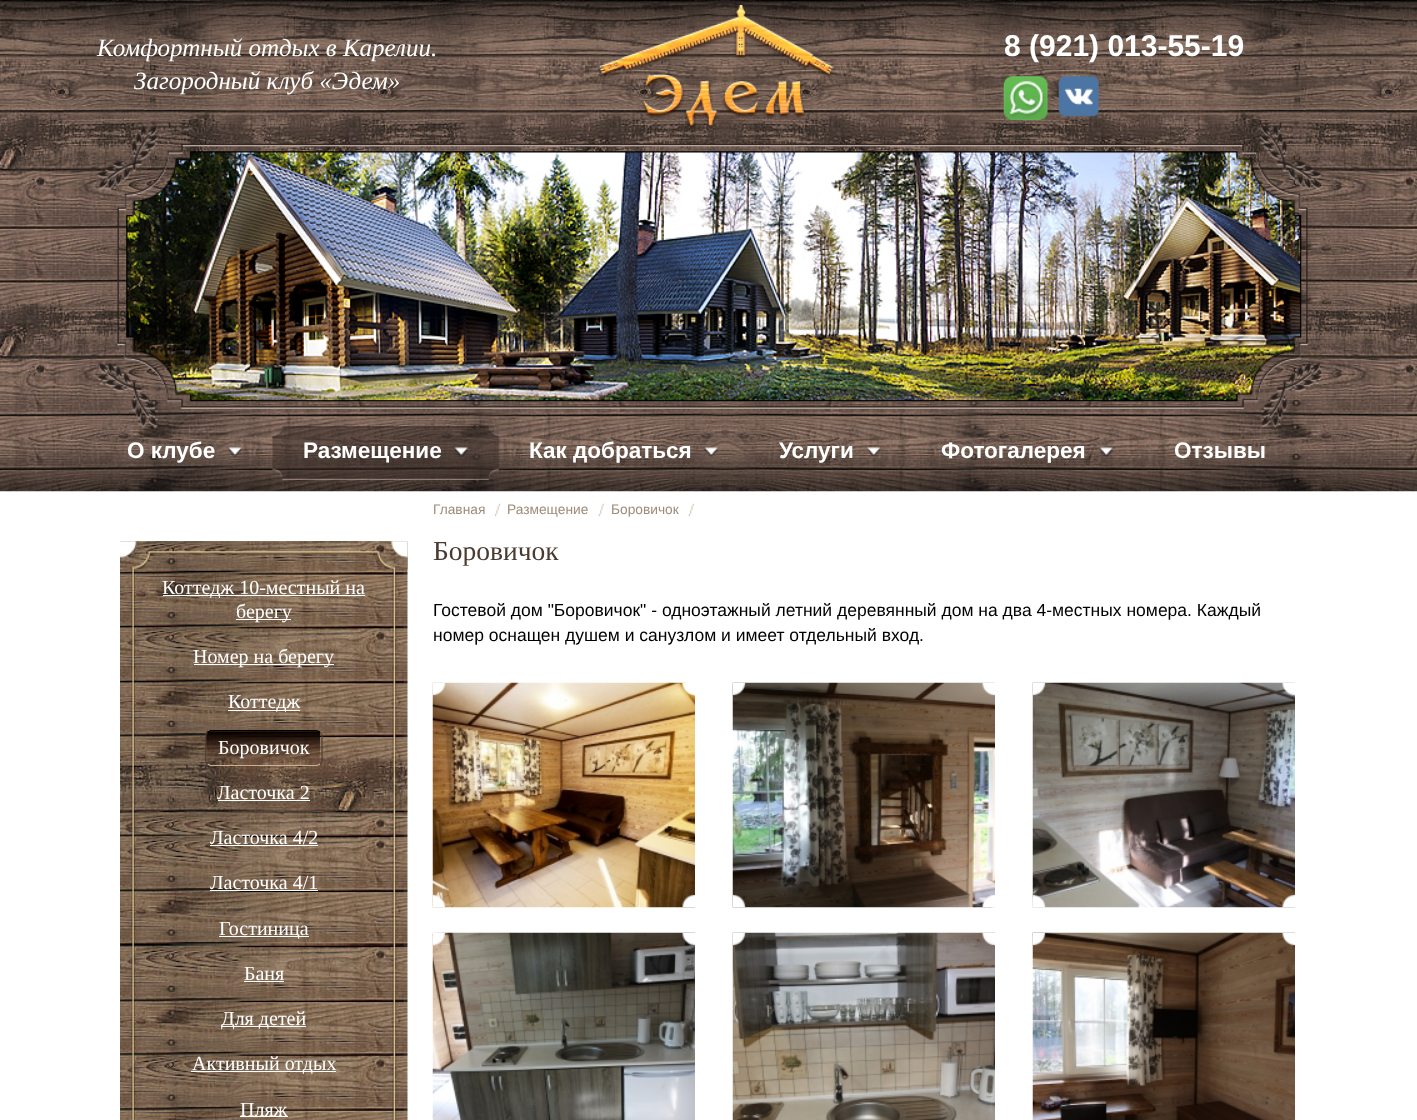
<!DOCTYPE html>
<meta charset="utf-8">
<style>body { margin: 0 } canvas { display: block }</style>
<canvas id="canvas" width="1417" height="1120"></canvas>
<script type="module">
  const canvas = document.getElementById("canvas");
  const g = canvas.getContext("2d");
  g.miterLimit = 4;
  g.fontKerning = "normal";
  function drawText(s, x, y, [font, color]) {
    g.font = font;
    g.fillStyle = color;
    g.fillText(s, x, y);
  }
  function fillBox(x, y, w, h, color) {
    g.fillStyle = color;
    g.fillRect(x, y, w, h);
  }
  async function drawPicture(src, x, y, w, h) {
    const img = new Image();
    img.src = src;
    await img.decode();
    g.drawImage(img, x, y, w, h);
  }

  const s1 = ["italic 25px Liberation Serif", "#FFFFFF"];
  const s2 = ["bold 30px Liberation Sans", "#FFFFFF"];
  const s3 = ["bold 22.5px Liberation Sans", "#FFFFFF"];
  const s4 = ["13.75px Liberation Sans", "#A08C78"];
  const s5 = ["20px Liberation Serif", "#FFFFFF"];
  const s6 = ["27.5px Liberation Serif", "#4A3A30"];
  const s7 = ["17.5px Liberation Sans", "#000000"];

  fillBox(0, 0, 1417, 1120, "#FFFFFF");
  await drawPicture("pic1.png", 0, 0, 1417, 492);
  drawText("Комфортный отдых в Карелии.", 97, 56, s1);
  drawText("Загородный клуб «Эдем»", 134, 89, s1);
  await drawPicture("pic2.png", 598, 5, 237, 125);
  drawText("8 (921) 013-55-19", 1004, 56, s2);
  await drawPicture("pic3.png", 1003, 76, 45, 44);
  await drawPicture("pic4.png", 1058, 76, 41, 41);
  await drawPicture("pic5.png", 97, 125, 1225, 303);
  await drawPicture("pic6.png", 126, 151, 1176, 251);
  await drawPicture("pic7.png", 228, 447, 14, 10);
  drawText("О клубе", 127, 458, s3);
  await drawPicture("pic8.png", 480, 426, 19, 54);
  await drawPicture("pic9.png", 272, 426, 208, 54);
  await drawPicture("pic10.png", 454, 447, 15, 10);
  drawText("Размещение", 303, 458, s3);
  await drawPicture("pic11.png", 704, 447, 15, 10);
  drawText("Как добраться", 529, 458, s3);
  await drawPicture("pic12.png", 866, 447, 15, 11);
  drawText("Услуги", 779, 458, s3);
  await drawPicture("pic13.png", 1099, 447, 15, 10);
  drawText("Фотогалерея", 941, 458, s3);
  drawText("Отзывы", 1174, 458, s3);
  await drawPicture("pic14.png", 495, 503, 6, 14);
  drawText("Главная", 433, 514, s4);
  await drawPicture("pic15.png", 598, 503, 6, 14);
  drawText("Размещение", 507, 514, s4);
  await drawPicture("pic16.png", 688, 503, 6, 14);
  drawText("Боровичок", 611, 514, s4);
  await drawPicture("pic17.png", 120, 541, 288, 579);
  await drawPicture("pic18.png", 120, 541, 288, 28);
  fillBox(163, 595, 202, 1, "#FFFFFF");
  drawText("Коттедж 10-местный на", 162, 594, s5);
  fillBox(236, 619, 55, 1, "#FFFFFF");
  drawText("берегу", 236, 618, s5);
  fillBox(194, 664, 140, 1, "#FFFFFF");
  drawText("Номер на берегу", 193, 663, s5);
  fillBox(228, 710, 72, 1, "#FFFFFF");
  drawText("Коттедж", 228, 708, s5);
  await drawPicture("pic19.png", 206, 731, 114, 32);
  g.beginPath();
  g.moveTo(207.5, 732.5);
  g.lineTo(210.5, 730.5);
  g.lineTo(317, 730.5);
  g.lineTo(320, 732.5);
  g.strokeStyle = "#030100";
  g.lineWidth = 1.2;
  g.stroke();
  g.beginPath();
  g.moveTo(320, 732.5);
  g.bezierCurveTo(321.5, 733.5, 322, 735, 322, 736);
  g.lineTo(322, 760);
  g.bezierCurveTo(322, 761.5, 321.5, 763, 320, 764);
  g.strokeStyle = "#514030";
  g.stroke();
  g.beginPath();
  g.moveTo(320, 764);
  g.lineTo(317, 765.5);
  g.lineTo(210.5, 765.5);
  g.lineTo(207.5, 764);
  g.strokeStyle = "#CFAF90";
  g.stroke();
  g.beginPath();
  g.moveTo(207.5, 764);
  g.bezierCurveTo(206, 763, 205.5, 761.5, 205.5, 760);
  g.lineTo(205.5, 736);
  g.bezierCurveTo(205.5, 735, 206, 733.5, 207.5, 732.5);
  g.strokeStyle = "#514030";
  g.stroke();
  drawText("Боровичок", 218, 754, s5);
  drawText("Ласточка 2", 217, 799, s5);
  fillBox(218, 800, 92, 1, "#FFFFFF");
  drawText("Ласточка 4/2", 210, 844, s5);
  fillBox(210, 845, 108, 1, "#FFFFFF");
  drawText("Ласточка 4/1", 210, 889, s5);
  fillBox(210, 890, 108, 1, "#FFFFFF");
  fillBox(219, 936, 90, 1, "#FFFFFF");
  drawText("Гостиница", 219, 935, s5);
  drawText("Баня", 244, 980, s5);
  fillBox(244, 981, 40, 1, "#FFFFFF");
  fillBox(221, 1026, 85, 1, "#FFFFFF");
  drawText("Для детей", 221, 1025, s5);
  fillBox(191, 1071, 145, 1, "#FFFFFF");
  drawText("Активный отдых", 192, 1070, s5);
  fillBox(240, 1116, 48, 1, "#FFFFFF");
  drawText("Пляж", 240, 1116, s5);
  drawText("Боровичок", 433, 560, s6);
  drawText("Гостевой дом \"Боровичок\" - одноэтажный летний деревянный дом на два 4-местных номера. Каждый", 433, 616, s7);
  drawText("номер оснащен душем и санузлом и имеет отдельный вход.", 433, 641, s7);
  await drawPicture("pic20.png", 432, 682, 263, 226);
  await drawPicture("pic21.png", 432, 682, 263, 226);
  await drawPicture("pic22.png", 732, 682, 263, 226);
  await drawPicture("pic23.png", 732, 682, 263, 226);
  await drawPicture("pic24.png", 1032, 682, 263, 226);
  await drawPicture("pic25.png", 1032, 682, 263, 226);
  await drawPicture("pic26.png", 432, 932, 263, 188);
  await drawPicture("pic27.png", 432, 932, 263, 14);
  await drawPicture("pic28.png", 732, 932, 263, 188);
  await drawPicture("pic29.png", 732, 932, 263, 14);
  await drawPicture("pic30.png", 1032, 932, 263, 188);
  await drawPicture("pic31.png", 1032, 932, 263, 14);
</script>
